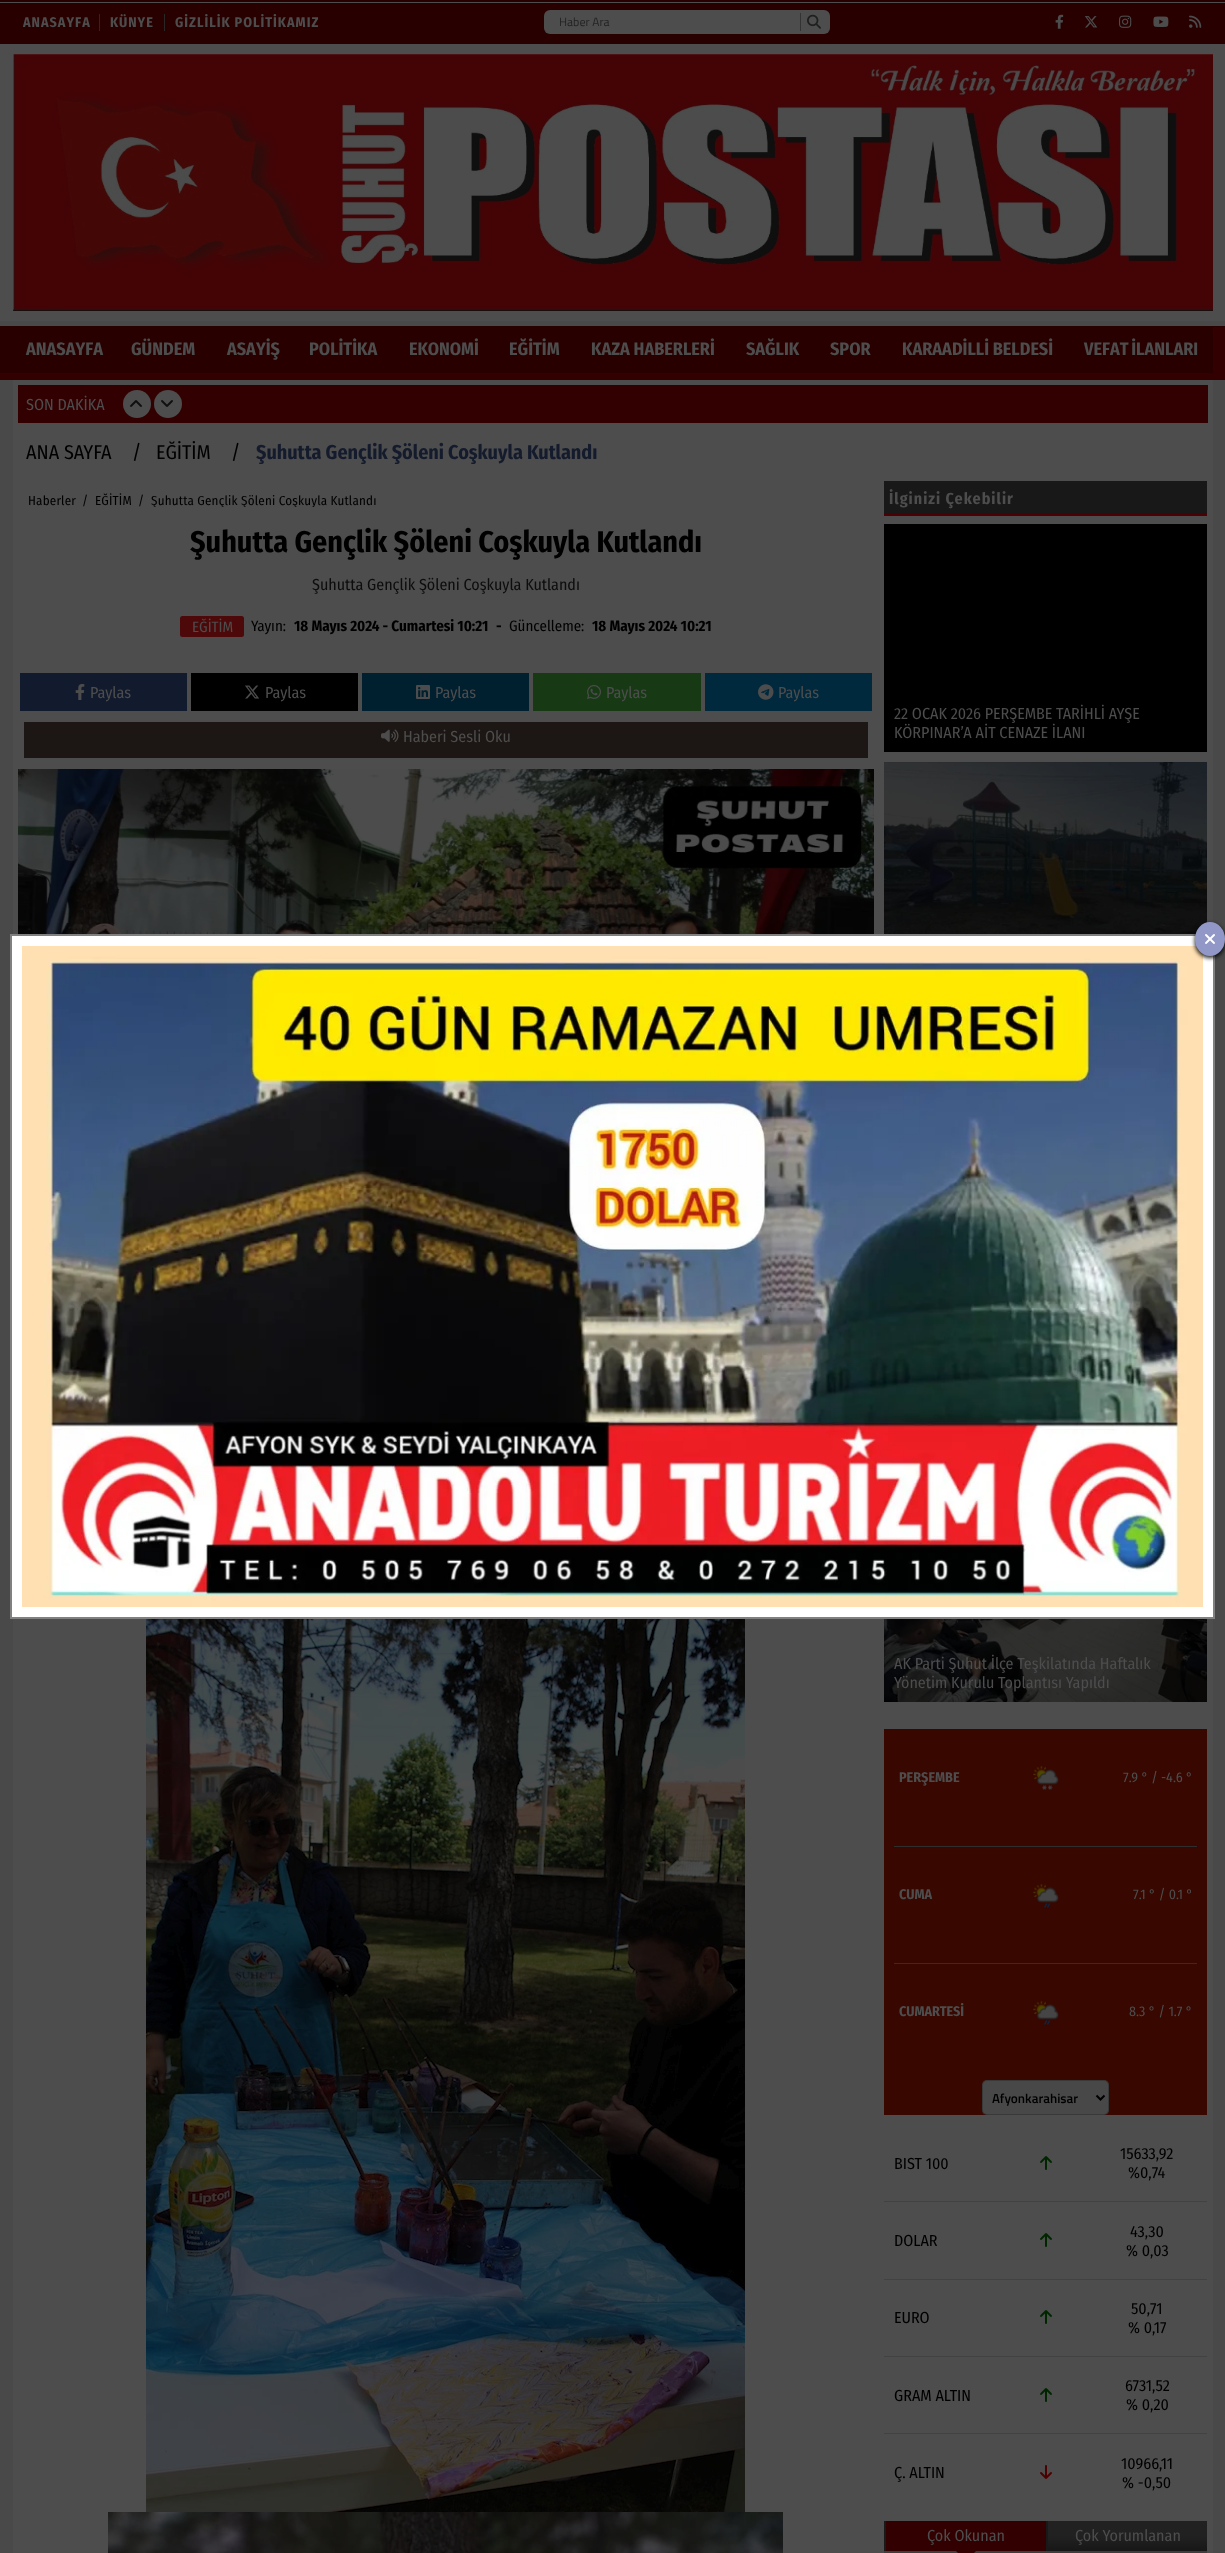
<!DOCTYPE html>
<meta charset="utf-8">
<style>body { margin: 0 } canvas { display: block }</style>
<canvas id="canvas" width="1225" height="2553"></canvas>
<script type="module">
  const canvas = document.getElementById("canvas");
  const g = canvas.getContext("2d");
  g.miterLimit = 4;
  g.fontKerning = "normal";
  function drawText(s, x, y, [font, color]) {
    g.font = font;
    g.fillStyle = color;
    g.fillText(s, x, y);
  }
  function fillBox(x, y, w, h, color) {
    g.fillStyle = color;
    g.fillRect(x, y, w, h);
  }
  function fillRounded(x, y, w, h, r, color) {
    g.fillStyle = color;
    g.beginPath();
    g.roundRect(x, y, w, h, r);
    g.fill();
  }
  async function drawPicture(src, x, y, w, h) {
    const img = new Image();
    img.src = src;
    await img.decode();
    g.drawImage(img, x, y, w, h);
  }
  let gradient;

  const s1 = ["bold 14px Fira Sans Condensed", "#4D4D4D"];
  const s2 = ["12px Titillium Web", "#232323"];
  const s3 = ["bold 18px Fira Sans Condensed", "#4D4D4D"];
  const s4 = ["16px Fira Sans Condensed", "#4D4D4D"];
  const s5 = ["20px Fira Sans Condensed", "#000000"];
  const s6 = ["bold 20px Fira Sans Condensed", "#141B2C"];
  const s7 = ["13px Fira Sans Condensed", "#000000"];
  const s8 = ["bold 30px Fira Sans Condensed", "#000000"];
  const s9 = ["16px Fira Sans Condensed", "#0D0D0D"];
  const s10 = ["15px Fira Sans Condensed", "#4D4D4D"];
  const s11 = ["15px Fira Sans Condensed", "#000000"];
  const s12 = ["bold 15px Fira Sans Condensed", "#000000"];
  const s13 = ["bold 16px Fira Sans Condensed", "#4D4D4D"];
  const s14 = ["14px Fira Sans Condensed", "#4D4D4D"];
  const s15 = ["600 13.25px Titillium Web", "#000000"];
  const s16 = ["16px Fira Sans Condensed", "#000000"];

  fillBox(0, 0, 1225, 2553, "#494949");
  fillBox(0, 44, 1225, 277, "#4D4D4D");
  fillBox(0, 0, 1225, 44, "#280000");
  fillBox(0, 2, 1225, 1, "#4D4D4D");
  g.letterSpacing = "1px";
  drawText("ANASAYFA", 23, 27, s1);
  fillBox(99, 14, 1, 17, "#282828");
  drawText("KÜNYE", 110, 27, s1);
  fillBox(164, 14, 1, 17, "#282828");
  drawText("GİZLİLİK POLİTİKAMIZ", 175, 27, s1);
  fillRounded(544, 10, 286, 24, 6, "#4D4D4D");
  g.letterSpacing = "0px";
  drawText("Haber Ara", 559, 26, s2);
  fillBox(800, 13, 1, 18, "#333333");
  await drawPicture("pic1.png", 807, 14, 14, 15);
  await drawPicture("pic2.png", 1055, 14, 9, 15);
  await drawPicture("pic3.png", 1084, 16, 14, 12);
  await drawPicture("pic4.png", 1119, 15, 13, 13);
  await drawPicture("pic5.png", 1153, 16, 16, 11);
  await drawPicture("pic6.png", 1189, 15, 13, 13);
  await drawPicture("pic7.png", 13, 54, 1200, 257);
  fillBox(0, 326, 1225, 47, "#280000");
  fillBox(0, 373, 1225, 7, "#320000");
  drawText("ANASAYFA", 26, 355, s3);
  drawText("GÜNDEM", 131, 355, s3);
  drawText("ASAYİŞ", 227, 355, s3);
  drawText("POLİTİKA", 309, 355, s3);
  drawText("EKONOMİ", 409, 355, s3);
  drawText("EĞİTİM", 509, 355, s3);
  drawText("KAZA HABERLERİ", 591, 355, s3);
  drawText("SAĞLIK", 746, 355, s3);
  drawText("SPOR", 830, 355, s3);
  drawText("KARAADİLLİ BELDESİ", 902, 355, s3);
  g.wordSpacing = "-1px";
  drawText("VEFAT İLANLARI", 1084, 355, s3);
  fillBox(1213, 327, 12, 46, "#320000");
  fillBox(13, 380, 1200, 2173, "#4D4D4D");
  fillBox(18, 385, 1190, 38, "#320000");
  g.wordSpacing = "0px";
  drawText("SON DAKİKA", 26, 410, s4);
  g.beginPath();
  g.arc(137, 404, 14, 0, Math.PI * 2);
  g.fill();
  await drawPicture("pic8.png", 130, 400, 12, 7);
  g.beginPath();
  g.arc(168, 404, 14, 0, Math.PI * 2);
  g.fill();
  await drawPicture("pic9.png", 161, 400, 12, 7);
  drawText("ANA SAYFA", 26, 459, s5);
  drawText("/", 132, 459, s5);
  drawText("EĞİTİM", 156, 459, s5);
  drawText("/", 231, 459, s5);
  g.save();
  g.beginPath();
  g.rect(256, 440, 341, 24);
  g.clip();
  drawText("Şuhutta Gençlik Şöleni Coşkuyla Kutlandı", 256, 459, s6);
  g.restore();
  g.letterSpacing = "0.2px";
  drawText("Haberler", 28, 505, s7);
  g.letterSpacing = "0px";
  drawText("/", 82, 505, s7);
  g.letterSpacing = "0.2px";
  drawText("EĞİTİM", 95, 505, s7);
  g.letterSpacing = "0px";
  drawText("/", 138, 505, s7);
  g.save();
  g.beginPath();
  g.rect(151, 494, 225, 13);
  g.clip();
  g.letterSpacing = "0.2px";
  drawText("Şuhutta Gençlik Şöleni Coşkuyla Kutlandı", 151, 505, s7);
  g.restore();
  drawText("Şuhutta Gençlik Şöleni Coşkuyla Kutlandı", 190, 552, s8);
  drawText("Şuhutta Gençlik Şöleni Coşkuyla Kutlandı", 312, 590, s9);
  fillRounded(180, 616, 64, 21, 2.5, "#4D0909");
  drawText("EĞİTİM", 192, 632, s10);
  drawText("Yayın:", 251, 631, s11);
  drawText("18 Mayıs 2024 - Cumartesi 10:21", 294, 631, s12);
  drawText("-", 496, 631, s12);
  drawText("Güncelleme:", 509, 631, s11);
  drawText("18 Mayıs 2024 10:21", 592, 631, s12);
  fillBox(884, 481, 323, 32, "#181818");
  g.letterSpacing = "1px";
  drawText("İlginizi Çekebilir", 889, 504, s13);
  fillBox(884, 513, 323, 3, "#4D0004");
  fillBox(884, 524, 323, 228, "#000000");
  g.letterSpacing = "0px";
  drawText("22 OCAK 2026 PERŞEMBE TARİHLİ AYŞE", 894, 719, s4);
  drawText("KÖRPINAR’A AİT CENAZE İLANI", 894, 738, s4);
  fillBox(884, 762, 323, 172, "#000000");
  await drawPicture("pic10.png", 884, 762, 323, 172);
  fillBox(884, 1619, 323, 83, "#000000");
  await drawPicture("pic11.png", 884, 1619, 323, 83);
  drawText("AK Parti Şuhut İlçe Teşkilatında Haftalık", 894, 1669, s4);
  drawText("Yönetim Kurulu Toplantısı Yapıldı", 894, 1688, s4);
  fillBox(20, 673, 167, 38, "#121B2E");
  await drawPicture("pic12.png", 75, 684, 10, 16);
  drawText("Paylas", 90, 698, s4);
  fillBox(191, 673, 167, 38, "#000000");
  await drawPicture("pic13.png", 245, 685, 15, 14);
  drawText("Paylas", 265, 698, s4);
  fillBox(362, 673, 167, 38, "#001F2F");
  await drawPicture("pic14.png", 416, 685, 14, 14);
  drawText("Paylas", 435, 698, s4);
  fillBox(533, 673, 168, 38, "#173A15");
  await drawPicture("pic15.png", 587, 685, 14, 14);
  drawText("Paylas", 606, 698, s4);
  fillBox(705, 673, 167, 38, "#00293D");
  await drawPicture("pic16.png", 758, 684, 16, 16);
  drawText("Paylas", 778, 698, s4);
  fillBox(24, 722, 844, 36, "#1C1714");
  await drawPicture("pic17.png", 381, 729, 18, 13);
  drawText("Haberi Sesli Oku", 403, 742, s4);
  await drawPicture("pic18.png", 18, 769, 856, 165);
  await drawPicture("pic19.png", 146, 1619, 599, 893);
  await drawPicture("pic20.png", 108, 2512, 675, 41);
  fillBox(884, 1729, 323, 386, "#370700");
  drawText("PERŞEMBE", 899, 1782, s1);
  await drawPicture("pic21.png", 1032, 1765, 27, 26);
  drawText("7.9 ° / -4.6 °", 1123, 1782, s14);
  fillBox(894, 1846, 303, 1, "#2E2E2E");
  drawText("CUMA", 899, 1899, s1);
  await drawPicture("pic22.png", 1032, 1883, 27, 26);
  drawText("7.1 ° / 0.1 °", 1133, 1899, s14);
  fillBox(894, 1963, 303, 1, "#2E2E2E");
  drawText("CUMARTESİ", 899, 2016, s1);
  await drawPicture("pic22.png", 1032, 2000, 27, 26);
  drawText("8.3 ° / 1.7 °", 1129, 2016, s14);
  fillRounded(982, 2080, 127, 35, 5, "#484848");
  g.beginPath();
  g.roundRect(982.5, 2080.5, 126, 34, 4.5);
  g.strokeStyle = "rgba(0, 0, 0, 0.2)";
  g.stroke();
  g.beginPath();
  g.moveTo(1096.5, 2095.5);
  g.lineTo(1100.5, 2099.5);
  g.lineTo(1104.5, 2095.5);
  g.strokeStyle = "#000000";
  g.lineWidth = 2;
  g.stroke();
  drawText("Afyonkarahisar", 992, 2103, s15);
  fillBox(884, 2201, 323, 1, "#424242");
  drawText("BIST 100", 894, 2169, s16);
  await drawPicture("pic23.png", 1040, 2156, 12, 14);
  drawText("15633,92", 1120, 2159, s16);
  drawText("%0,74", 1128, 2178, s16);
  fillBox(884, 2279, 323, 1, "#424242");
  drawText("DOLAR", 894, 2246, s16);
  await drawPicture("pic23.png", 1040, 2233, 12, 14);
  drawText("43,30", 1130, 2237, s16);
  drawText("% 0,03", 1126, 2256, s16);
  fillBox(884, 2356, 323, 1, "#424242");
  drawText("EURO", 894, 2323, s16);
  await drawPicture("pic23.png", 1040, 2310, 12, 14);
  drawText("50,71", 1131, 2314, s16);
  drawText("% 0,17", 1128, 2333, s16);
  fillBox(884, 2433, 323, 1, "#424242");
  drawText("GRAM ALTIN", 894, 2401, s16);
  await drawPicture("pic23.png", 1040, 2388, 12, 14);
  drawText("6731,52", 1125, 2391, s16);
  drawText("% 0,20", 1126, 2410, s16);
  drawText("Ç. ALTIN", 894, 2478, s16);
  await drawPicture("pic24.png", 1040, 2465, 12, 14);
  drawText("10966,11", 1121, 2469, s16);
  drawText("% -0,50", 1122, 2488, s16);
  gradient = g.createLinearGradient(1046, 2521, 1046, 2551);
  gradient.addColorStop(0, "#212121");
  gradient.addColorStop(0.5, "#212121");
  gradient.addColorStop(1, "#171717");
  g.fillStyle = gradient;
  g.fillRect(1048, 2521, 159, 30);
  fillBox(886, 2521, 160, 30, "#320000");
  fillBox(884, 2521, 2, 30, "#191919");
  drawText("Çok Okunan", 927, 2541, s4);
  g.strokeStyle = "#3E3E3E";
  g.lineWidth = 4;
  g.strokeRect(886, 2553, 319, 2);
  g.fillStyle = "#320000";
  g.beginPath();
  g.moveTo(956, 2551);
  g.lineTo(976, 2551);
  g.lineTo(966, 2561);
  g.closePath();
  g.fill();
  fillBox(1046, 2521, 2, 30, "#191919");
  drawText("Çok Yorumlanan", 1075, 2541, s4);
  g.fillStyle = "#FFFFFF";
  g.beginPath();
  g.rect(11, 935, 1203, 683);
  g.fill();
  g.strokeStyle = "#808080";
  g.lineWidth = 2;
  g.stroke();
  await drawPicture("pic26.png", 22, 946, 1181, 661);
  g.fillStyle = "rgba(0, 0, 0, 0.9)";
  g.filter = "blur(2px)";
  g.beginPath();
  g.roundRect(1195, 924, 30, 34, 15);
  g.fill();
  g.filter = "none";
  g.fillStyle = "#9198C7";
  g.beginPath();
  g.ellipse(1210, 939, 15, 17, 0, 0, Math.PI * 2);
  g.fill();
  await drawPicture("pic25.png", 1205, 934, 10, 10);
</script>
